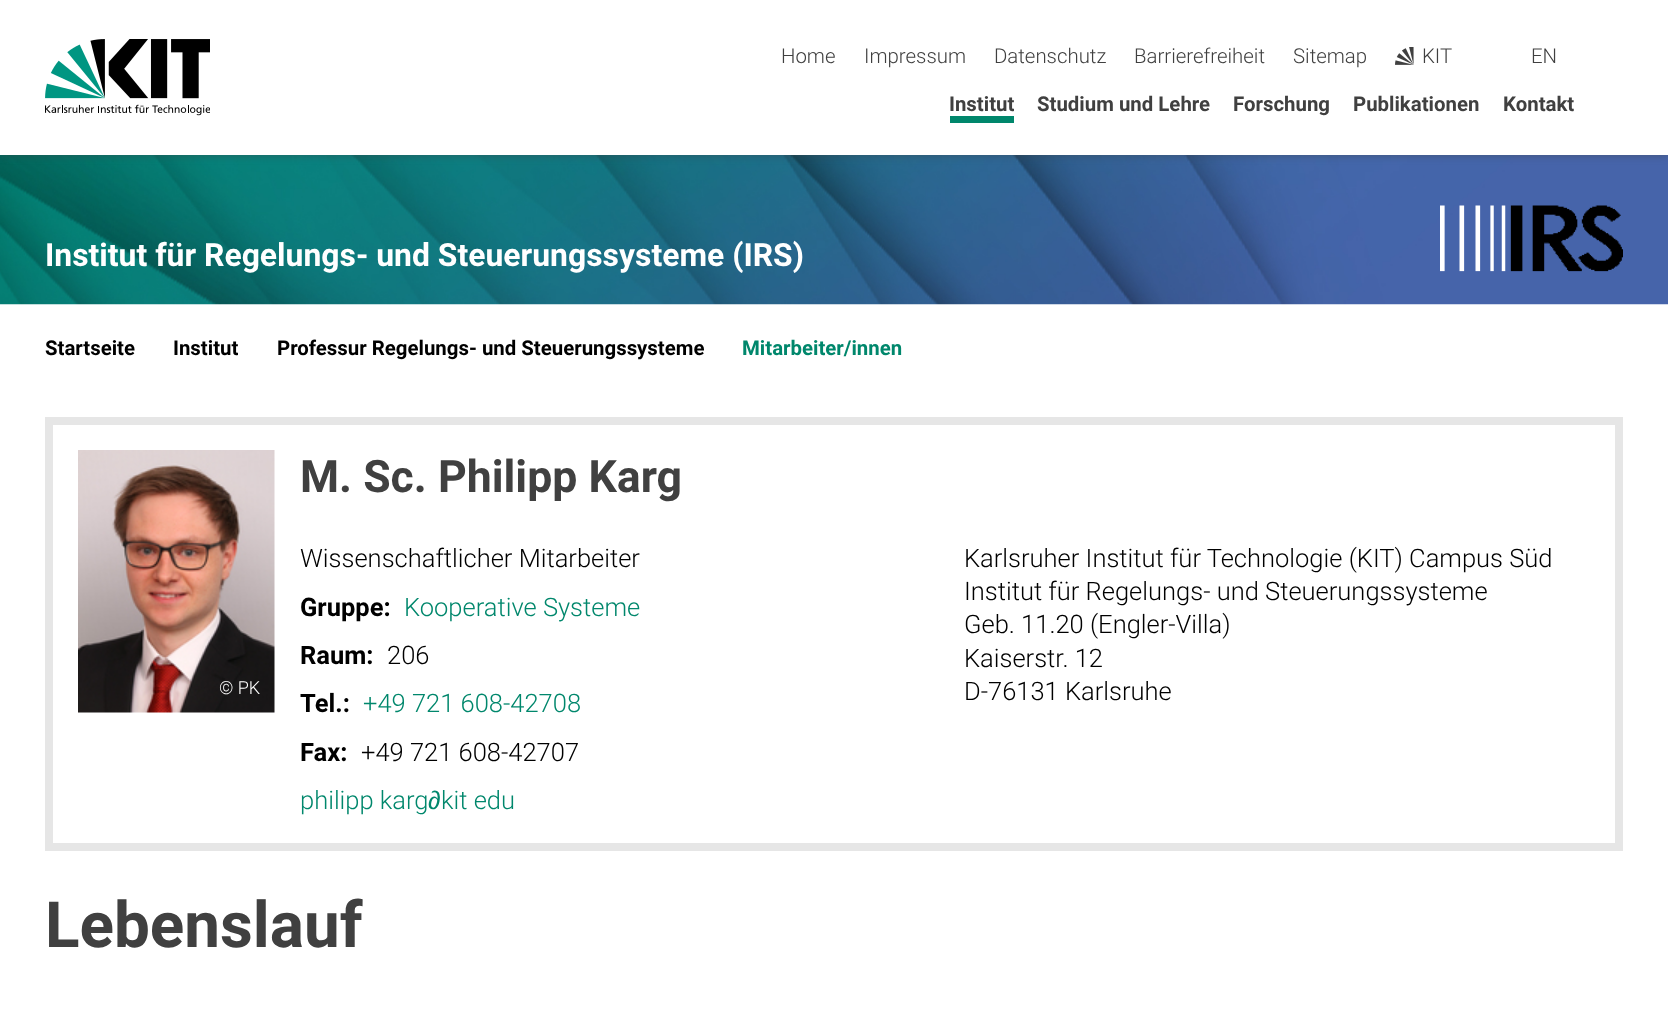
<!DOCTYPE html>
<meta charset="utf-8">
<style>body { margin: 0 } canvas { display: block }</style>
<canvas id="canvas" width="1668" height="1015"></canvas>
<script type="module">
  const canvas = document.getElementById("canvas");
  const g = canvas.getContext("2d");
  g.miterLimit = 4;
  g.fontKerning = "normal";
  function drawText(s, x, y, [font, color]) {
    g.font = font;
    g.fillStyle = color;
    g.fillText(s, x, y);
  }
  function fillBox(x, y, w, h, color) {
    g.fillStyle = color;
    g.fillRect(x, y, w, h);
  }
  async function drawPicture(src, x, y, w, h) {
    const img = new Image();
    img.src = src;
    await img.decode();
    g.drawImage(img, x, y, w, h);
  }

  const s1 = ["300 20.4px Roboto", "#404040"];
  const s2 = ["bold 20.4px Roboto", "#404040"];
  const s3 = ["bold 31.9px Roboto", "#FFFFFF"];
  const s4 = ["bold 20.4px Roboto", "#000000"];
  const s5 = ["bold 20.4px Roboto", "#00876C"];
  const s6 = ["300 18px Roboto", "#FFFFFF"];
  const s7 = ["bold 44.6px Roboto", "#404040"];
  const s8 = ["300 25.5px Roboto", "#000000"];
  const s9 = ["bold 25.5px Roboto", "#000000"];
  const s10 = ["300 25.5px Roboto", "#00876C"];
  const s11 = ["25.5px Liberation Sans", "#00876C"];
  const s12 = ["bold 63.75px Roboto", "#404040"];

  fillBox(0, 0, 1668, 1015, "#FFFFFF");
  await drawPicture("pic3.png", 0, 155, 1668, 150);
  g.fillStyle = "rgba(64, 64, 64, 0.5)";
  g.filter = "blur(4px)";
  g.beginPath();
  g.rect(0, 0, 1668, 155);
  g.fill();
  g.filter = "none";
  fillBox(0, 0, 1668, 155, "#FFFFFF");
  await drawPicture("pic1.png", 45, 39, 165, 77);
  drawText("Home", 781, 63, s1);
  drawText("Impressum", 864, 63, s1);
  drawText("Datenschutz", 994, 63, s1);
  drawText("Barrierefreiheit", 1134, 63, s1);
  drawText("Sitemap", 1293, 63, s1);
  await drawPicture("pic2.png", 1395, 47, 19, 18);
  drawText("KIT", 1422, 63, s1);
  drawText("EN", 1531, 63, s1);
  drawText("Institut", 949, 111, s2);
  fillBox(950, 116, 64, 7, "#00876C");
  drawText("Studium und Lehre", 1037, 111, s2);
  drawText("Forschung", 1233, 111, s2);
  drawText("Publikationen", 1353, 111, s2);
  drawText("Kontakt", 1503, 111, s2);
  drawText("Institut für Regelungs- und Steuerungssysteme (IRS)", 45, 266, s3);
  await drawPicture("pic4.png", 1440, 205, 183, 67);
  drawText("Startseite", 45, 355, s4);
  drawText("Institut", 173, 355, s4);
  drawText("Professur Regelungs- und Steuerungssysteme", 277, 355, s4);
  drawText("Mitarbeiter/innen", 742, 355, s5);
  g.strokeStyle = "#E6E6E6";
  g.lineWidth = 8;
  g.strokeRect(49, 421, 1570, 426);
  await drawPicture("pic5.png", 78, 450, 197, 263);
  drawText("© PK", 219, 694, s6);
  drawText("M. Sc. Philipp Karg", 300, 492, s7);
  drawText("Wissenschaftlicher Mitarbeiter", 300, 567, s8);
  drawText("Gruppe:", 300, 616, s9);
  drawText("Kooperative Systeme", 404, 616, s10);
  drawText("Raum:", 300, 664, s9);
  drawText("206", 387, 664, s8);
  drawText("Tel.:", 300, 712, s9);
  drawText("+49 721 608-42708", 363, 712, s10);
  drawText("Fax:", 300, 761, s9);
  drawText("+49 721 608-42707", 361, 761, s8);
  drawText("philipp karg", 300, 809, s10);
  drawText("∂", 428, 809, s11);
  drawText("kit edu", 441, 809, s10);
  drawText("Karlsruher Institut für Technologie (KIT) Campus Süd", 964, 567, s8);
  drawText("Institut für Regelungs- und Steuerungssysteme", 964, 600, s8);
  drawText("Geb. 11.20 (Engler-Villa)", 964, 633, s8);
  drawText("Kaiserstr. 12", 964, 667, s8);
  drawText("D-76131 Karlsruhe", 964, 700, s8);
  drawText("Lebenslauf", 45, 947, s12);
</script>
